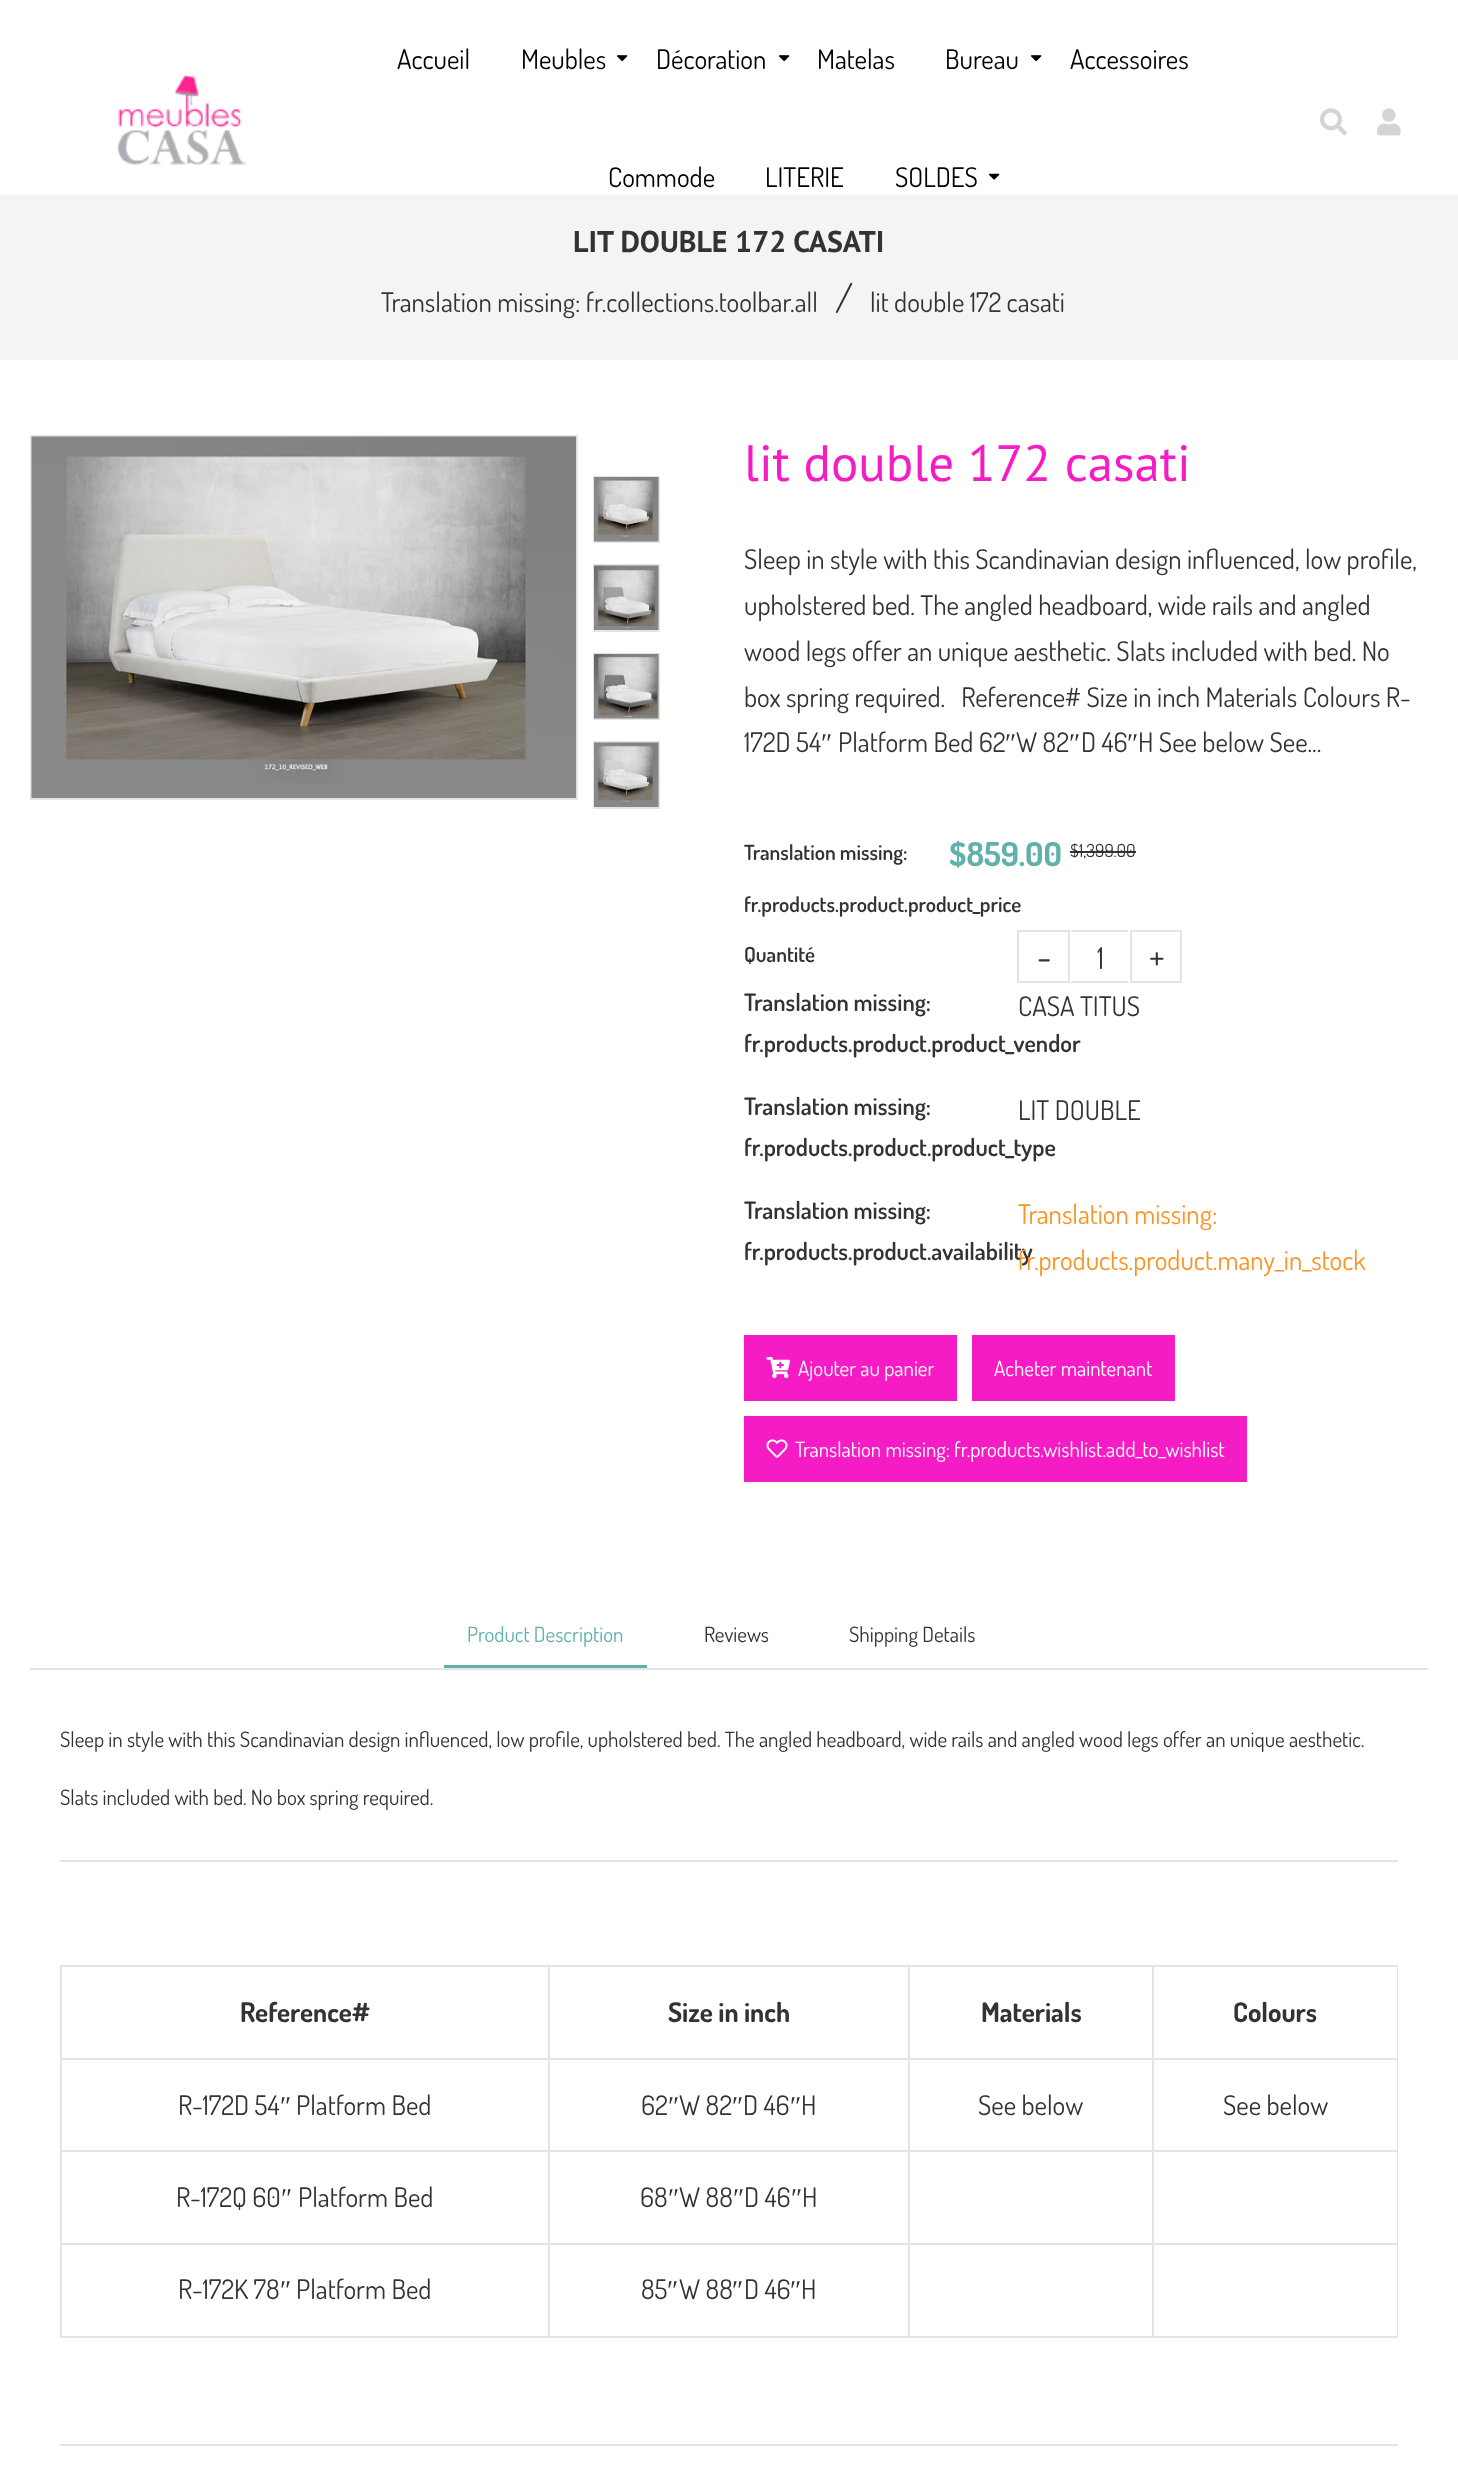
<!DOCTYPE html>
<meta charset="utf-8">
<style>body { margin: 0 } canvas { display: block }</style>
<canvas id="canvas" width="1458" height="2480"></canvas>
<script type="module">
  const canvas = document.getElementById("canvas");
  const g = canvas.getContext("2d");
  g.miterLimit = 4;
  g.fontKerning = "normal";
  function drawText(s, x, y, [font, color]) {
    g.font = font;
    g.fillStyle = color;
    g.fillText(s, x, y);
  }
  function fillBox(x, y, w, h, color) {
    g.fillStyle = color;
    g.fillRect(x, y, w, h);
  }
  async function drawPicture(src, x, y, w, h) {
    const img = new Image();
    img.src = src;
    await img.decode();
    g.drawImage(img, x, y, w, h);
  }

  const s1 = ["27px Dosis", "#000000"];
  const s2 = ["bold 30px PT Sans", "#333333"];
  const s3 = ["27px Dosis", "#333333"];
  const s4 = ["38px Dosis", "#333333"];
  const s5 = ["51px PT Sans", "#F51BC5"];
  const s6 = ["27px Liberation Serif", "#333333"];
  const s7 = ["bold 33px Dosis", "#60B1AB"];
  const s8 = ["18px Dosis", "#333333"];
  const s9 = ["600 21px Dosis", "#333333"];
  const s10 = ["36px Dosis", "#333333"];
  const s11 = ["30px Dosis", "#333333"];
  const s12 = ["600 24px Dosis", "#333333"];
  const s13 = ["27px Dosis", "#FA9324"];
  const s14 = ["21px Dosis", "#FFFFFF"];
  const s15 = ["21px Dosis", "#60B1AB"];
  const s16 = ["21px Dosis", "#333333"];
  const s17 = ["bold 27px Dosis", "#333333"];

  fillBox(0, 0, 1458, 2480, "#FFFFFF");
  await drawPicture("pic1.png", 117, 75, 130, 90);
  drawText("Accueil", 397, 69, s1);
  drawText("Meubles", 521, 69, s1);
  await drawPicture("pic2.png", 616, 55, 12, 7);
  drawText("Décoration", 656, 69, s1);
  await drawPicture("pic2.png", 778, 55, 12, 7);
  drawText("Matelas", 817, 69, s1);
  drawText("Bureau", 945, 69, s1);
  await drawPicture("pic2.png", 1030, 55, 12, 7);
  drawText("Accessoires", 1070, 69, s1);
  drawText("Commode", 608, 187, s1);
  drawText("LITERIE", 765, 187, s1);
  drawText("SOLDES", 895, 187, s1);
  await drawPicture("pic3.png", 988, 173, 12, 7);
  await drawPicture("pic4.png", 1320, 108, 27, 28);
  await drawPicture("pic5.png", 1377, 108, 24, 28);
  fillBox(0, 195, 1458, 165, "#F4F4F4");
  drawText("LIT DOUBLE 172 CASATI", 573, 252, s2);
  drawText("Translation missing: fr.collections.toolbar.all", 381, 312, s3);
  drawText("/", 835, 312, s4);
  drawText("lit double 172 casati", 870, 312, s3);
  g.strokeStyle = "#E4E4E4";
  g.lineWidth = 2;
  g.strokeRect(31, 436, 546, 363);
  await drawPicture("pic6.png", 31, 436, 545, 362);
  g.strokeRect(594, 477, 65, 65);
  await drawPicture("pic7.png", 594, 477, 65, 65);
  g.strokeRect(594, 565, 65, 66);
  await drawPicture("pic8.png", 594, 565, 65, 65);
  g.strokeRect(594, 654, 65, 65);
  await drawPicture("pic9.png", 594, 654, 65, 65);
  g.strokeRect(594, 742, 65, 66);
  await drawPicture("pic10.png", 594, 742, 65, 65);
  drawText("lit double 172 casati", 744, 481, s5);
  drawText("Sleep in style with this Scandinavian design influenced, low profile,", 744, 569, s3);
  drawText("upholstered bed. The angled headboard, wide rails and angled", 744, 615, s3);
  drawText("wood legs offer an unique aesthetic. Slats included with bed. No", 744, 661, s3);
  drawText("box spring required.   Reference# Size in inch Materials Colours R-", 744, 707, s3);
  drawText("172D 54", 744, 752, s3);
  drawText("″", 821, 752, s6);
  drawText("Platform Bed 62", 838, 752, s3);
  drawText("″", 1005, 752, s6);
  drawText("W 82", 1016, 752, s3);
  drawText("″", 1069, 752, s6);
  drawText("D 46", 1081, 752, s3);
  drawText("″", 1127, 752, s6);
  drawText("H See below See...", 1138, 752, s3);
  drawText("$859.00", 949, 866, s7);
  drawText("$1,399.00", 1070, 857, s8);
  fillBox(1070, 851, 66, 2, "#333333");
  drawText("Translation missing:", 744, 860, s9);
  drawText("fr.products.product.product_price", 744, 912, s9);
  drawText("Quantité", 744, 962, s9);
  g.strokeRect(1018, 931, 51, 51);
  drawText("-", 1037, 969, s10);
  fillBox(1071, 930, 57, 2, "#E4E4E4");
  fillBox(1071, 981, 57, 2, "#E4E4E4");
  drawText("1", 1097, 969, s11);
  g.strokeRect(1131, 931, 50, 51);
  drawText("+", 1149, 969, s10);
  drawText("Translation missing:", 744, 1011, s12);
  drawText("fr.products.product.product_vendor", 744, 1052, s12);
  drawText("CASA TITUS", 1018, 1016, s3);
  drawText("Translation missing:", 744, 1115, s12);
  drawText("fr.products.product.product_type", 744, 1156, s12);
  drawText("LIT DOUBLE", 1018, 1120, s3);
  drawText("Translation missing:", 744, 1219, s12);
  drawText("fr.products.product.availability", 744, 1260, s12);
  drawText("Translation missing:", 1018, 1224, s13);
  drawText("fr.products.product.many_in_stock", 1018, 1270, s13);
  fillBox(744, 1335, 213, 66, "#F51BC5");
  await drawPicture("pic11.png", 766, 1357, 25, 22);
  drawText("Ajouter au panier", 798, 1376, s14);
  fillBox(972, 1335, 203, 66, "#F51BC5");
  drawText("Acheter maintenant", 994, 1376, s14);
  fillBox(744, 1416, 503, 66, "#F51BC5");
  await drawPicture("pic12.png", 766, 1439, 22, 19);
  drawText("Translation missing: fr.products.wishlist.add_to_wishlist", 795, 1457, s14);
  fillBox(30, 1668, 1398, 2, "#E4E4E4");
  drawText("Product Description", 467, 1642, s15);
  fillBox(444, 1665, 203, 3, "#60B1AB");
  drawText("Reviews", 704, 1642, s16);
  drawText("Shipping Details", 849, 1642, s16);
  drawText("Sleep in style with this Scandinavian design influenced, low profile, upholstered bed. The angled headboard, wide rails and angled wood legs offer an unique aesthetic.", 60, 1747, s16);
  drawText("Slats included with bed. No box spring required.", 60, 1805, s16);
  fillBox(60, 1860, 1338, 2, "#E4E4E4");
  fillBox(1152, 1965, 246, 2, "#E4E4E4");
  fillBox(1152, 2058, 246, 2, "#E4E4E4");
  fillBox(1152, 2150, 246, 2, "#E4E4E4");
  fillBox(1152, 2243, 246, 2, "#E4E4E4");
  fillBox(1397, 2243, 1, 94, "#E4E4E4");
  fillBox(1152, 2336, 246, 2, "#E4E4E4");
  fillBox(1152, 2243, 2, 94, "#E4E4E4");
  fillBox(908, 2243, 246, 2, "#E4E4E4");
  fillBox(1152, 2150, 2, 94, "#E4E4E4");
  fillBox(908, 2150, 246, 2, "#E4E4E4");
  fillBox(1152, 2058, 2, 93, "#E4E4E4");
  fillBox(908, 2058, 246, 2, "#E4E4E4");
  fillBox(1152, 1965, 2, 95, "#E4E4E4");
  fillBox(908, 1965, 246, 2, "#E4E4E4");
  fillBox(908, 2336, 246, 2, "#E4E4E4");
  fillBox(908, 2243, 2, 94, "#E4E4E4");
  fillBox(548, 2243, 361, 2, "#E4E4E4");
  fillBox(908, 2150, 2, 94, "#E4E4E4");
  fillBox(548, 2150, 361, 2, "#E4E4E4");
  fillBox(908, 2058, 2, 93, "#E4E4E4");
  fillBox(548, 2058, 361, 2, "#E4E4E4");
  fillBox(908, 1965, 2, 95, "#E4E4E4");
  fillBox(548, 1965, 361, 2, "#E4E4E4");
  fillBox(548, 2336, 361, 2, "#E4E4E4");
  fillBox(548, 2243, 2, 94, "#E4E4E4");
  fillBox(60, 2243, 489, 2, "#E4E4E4");
  fillBox(548, 2150, 2, 94, "#E4E4E4");
  fillBox(60, 2150, 489, 2, "#E4E4E4");
  fillBox(548, 2058, 2, 93, "#E4E4E4");
  fillBox(60, 2058, 489, 2, "#E4E4E4");
  fillBox(548, 1965, 2, 95, "#E4E4E4");
  fillBox(60, 1965, 489, 2, "#E4E4E4");
  fillBox(60, 2336, 489, 2, "#E4E4E4");
  fillBox(60, 2243, 2, 94, "#E4E4E4");
  fillBox(60, 2150, 2, 94, "#E4E4E4");
  fillBox(60, 2058, 2, 93, "#E4E4E4");
  fillBox(60, 1965, 2, 95, "#E4E4E4");
  drawText("Reference#", 240, 2022, s17);
  drawText("Size in inch", 668, 2022, s17);
  drawText("Materials", 981, 2022, s17);
  fillBox(1397, 2150, 1, 94, "#E4E4E4");
  fillBox(1397, 2058, 1, 93, "#E4E4E4");
  fillBox(1397, 1965, 1, 95, "#E4E4E4");
  drawText("Colours", 1233, 2022, s17);
  drawText("R-172D 54", 178, 2115, s3);
  drawText("″", 280, 2115, s6);
  drawText("Platform Bed", 296, 2115, s3);
  drawText("62", 641, 2115, s3);
  drawText("″", 668, 2115, s6);
  drawText("W 82", 679, 2115, s3);
  drawText("″", 732, 2115, s6);
  drawText("D 46", 743, 2115, s3);
  drawText("″", 790, 2115, s6);
  drawText("H", 801, 2115, s3);
  drawText("See below", 978, 2115, s3);
  drawText("See below", 1223, 2115, s3);
  drawText("R-172Q 60", 176, 2207, s3);
  drawText("″", 281, 2207, s6);
  drawText("Platform Bed", 298, 2207, s3);
  drawText("68", 640, 2207, s3);
  drawText("″", 668, 2207, s6);
  drawText("W 88", 679, 2207, s3);
  drawText("″", 733, 2207, s6);
  drawText("D 46", 744, 2207, s3);
  drawText("″", 791, 2207, s6);
  drawText("H", 802, 2207, s3);
  drawText("R-172K 78", 178, 2299, s3);
  drawText("″", 280, 2299, s6);
  drawText("Platform Bed", 296, 2299, s3);
  drawText("85", 641, 2299, s3);
  drawText("″", 667, 2299, s6);
  drawText("W 88", 679, 2299, s3);
  drawText("″", 732, 2299, s6);
  drawText("D 46", 744, 2299, s3);
  drawText("″", 790, 2299, s6);
  drawText("H", 801, 2299, s3);
  fillBox(60, 2444, 1338, 2, "#E4E4E4");
</script>
